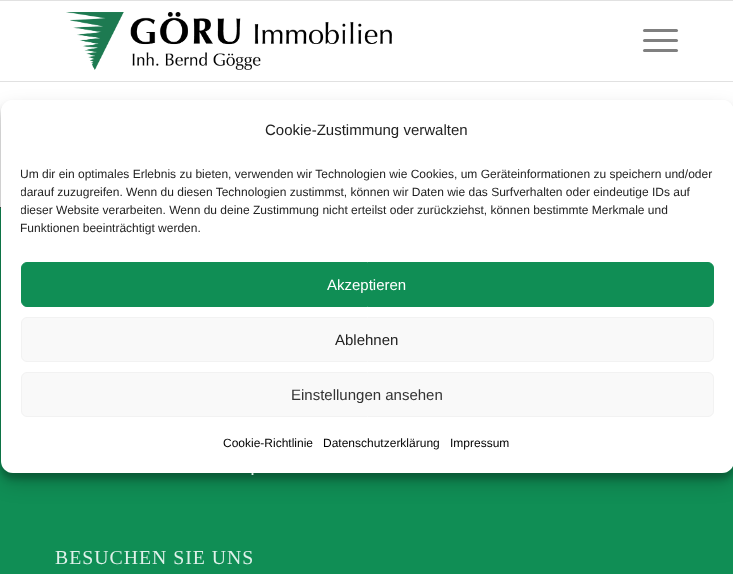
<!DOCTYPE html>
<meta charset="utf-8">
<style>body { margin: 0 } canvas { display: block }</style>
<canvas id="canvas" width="733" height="574"></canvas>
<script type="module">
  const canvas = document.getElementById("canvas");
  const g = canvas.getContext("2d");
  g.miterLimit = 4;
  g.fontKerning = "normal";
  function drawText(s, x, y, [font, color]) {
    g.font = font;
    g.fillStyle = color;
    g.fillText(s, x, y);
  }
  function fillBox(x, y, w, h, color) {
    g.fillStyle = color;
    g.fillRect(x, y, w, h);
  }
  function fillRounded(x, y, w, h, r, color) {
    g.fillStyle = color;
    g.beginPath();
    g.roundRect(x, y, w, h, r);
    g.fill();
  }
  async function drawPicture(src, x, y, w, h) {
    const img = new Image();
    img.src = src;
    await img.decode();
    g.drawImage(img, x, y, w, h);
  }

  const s1 = ["15px Liberation Sans", "#222222"];
  const s2 = ["12px Liberation Sans", "#222222"];
  const s3 = ["15px Liberation Sans", "#FFFFFF"];
  const s4 = ["15px Liberation Sans", "#333333"];
  const s5 = ["12px Liberation Sans", "#000000"];
  const s6 = ["18px Liberation Sans", "#DFF1EA"];
  const s7 = ["19.75px Liberation Serif", "#DFF1EA"];

  fillBox(0, 0, 733, 574, "#FFFFFF");
  fillBox(0, 208, 733, 366, "#108E55");
  fillBox(0, 207, 1, 1, "#444444");
  g.save();
  g.beginPath();
  g.moveTo(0, 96);
  g.lineTo(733, 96);
  g.lineTo(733, 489);
  g.lineTo(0, 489);
  g.closePath();
  g.moveTo(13, 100);
  g.lineTo(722, 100);
  g.bezierCurveTo(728.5, 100, 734, 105.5, 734, 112);
  g.lineTo(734, 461);
  g.bezierCurveTo(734, 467.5, 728.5, 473, 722, 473);
  g.lineTo(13, 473);
  g.bezierCurveTo(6.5, 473, 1, 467.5, 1, 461);
  g.lineTo(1, 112);
  g.bezierCurveTo(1, 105.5, 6.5, 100, 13, 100);
  g.closePath();
  g.clip("evenodd");
  g.fillStyle = "rgba(0, 0, 0, 0.23)";
  g.filter = "blur(3px)";
  g.beginPath();
  g.roundRect(1, 106, 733, 373, 12);
  g.fill();
  g.filter = "none";
  g.restore();
  fillBox(0, 81, 733, 1, "#E1E1E1");
  g.save();
  g.beginPath();
  g.moveTo(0, 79);
  g.lineTo(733, 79);
  g.lineTo(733, 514);
  g.lineTo(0, 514);
  g.closePath();
  g.moveTo(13, 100);
  g.lineTo(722, 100);
  g.bezierCurveTo(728.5, 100, 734, 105.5, 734, 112);
  g.lineTo(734, 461);
  g.bezierCurveTo(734, 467.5, 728.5, 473, 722, 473);
  g.lineTo(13, 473);
  g.bezierCurveTo(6.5, 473, 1, 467.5, 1, 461);
  g.lineTo(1, 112);
  g.bezierCurveTo(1, 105.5, 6.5, 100, 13, 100);
  g.closePath();
  g.clip("evenodd");
  g.fillStyle = "rgba(0, 0, 0, 0.19)";
  g.filter = "blur(10px)";
  g.beginPath();
  g.roundRect(1, 110, 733, 373, 12);
  g.fill();
  g.filter = "none";
  g.restore();
  fillRounded(1, 100, 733, 373, 12, "#FFFFFF");
  drawText("Cookie-Zustimmung verwalten", 265, 135, s1);
  g.save();
  g.beginPath();
  g.rect(21, 165, 693, 77);
  g.clip();
  drawText("Um dir ein optimales Erlebnis zu bieten, verwenden wir Technologien wie Cookies, um Geräteinformationen zu speichern und/oder", 20, 178, s2);
  drawText("darauf zuzugreifen. Wenn du diesen Technologien zustimmst, können wir Daten wie das Surfverhalten oder eindeutige IDs auf", 20, 196, s2);
  drawText("dieser Website verarbeiten. Wenn du deine Zustimmung nicht erteilst oder zurückziehst, können bestimmte Merkmale und", 20, 214, s2);
  g.restore();
  drawText("Funktionen beeinträchtigt werden.", 20, 232, s2);
  g.fillStyle = "#108E55";
  g.beginPath();
  g.roundRect(21.5, 262.5, 692, 44, 5.5);
  g.fill();
  g.strokeStyle = "#108E55";
  g.stroke();
  drawText("Akzeptieren", 327, 290, s3);
  g.fillStyle = "#F9F9F9";
  g.beginPath();
  g.roundRect(21.5, 317.5, 692, 44, 5.5);
  g.fill();
  g.strokeStyle = "#F2F2F2";
  g.stroke();
  drawText("Ablehnen", 335, 345, s1);
  g.fillStyle = "#F9F9F9";
  g.beginPath();
  g.roundRect(21.5, 372.5, 692, 44, 5.5);
  g.fill();
  g.stroke();
  drawText("Einstellungen ansehen", 291, 400, s4);
  drawText("Cookie-Richtlinie", 223, 447, s5);
  drawText("Datenschutzerklärung", 323, 447, s5);
  drawText("Impressum", 450, 447, s5);
  fillBox(0, 0, 733, 1, "#E1E1E1");
  await drawPicture("pic1.png", 66, 12, 326, 58);
  fillRounded(643, 39, 35, 3, 1.5, "#808080");
  fillRounded(643, 29, 35, 3, 1.5, "#808080");
  fillRounded(643, 49, 35, 3, 1.5, "#808080");
  drawText(".", 250, 475, s6);
  g.letterSpacing = "1px";
  drawText("BESUCHEN SIE UNS", 55, 564, s7);
</script>
